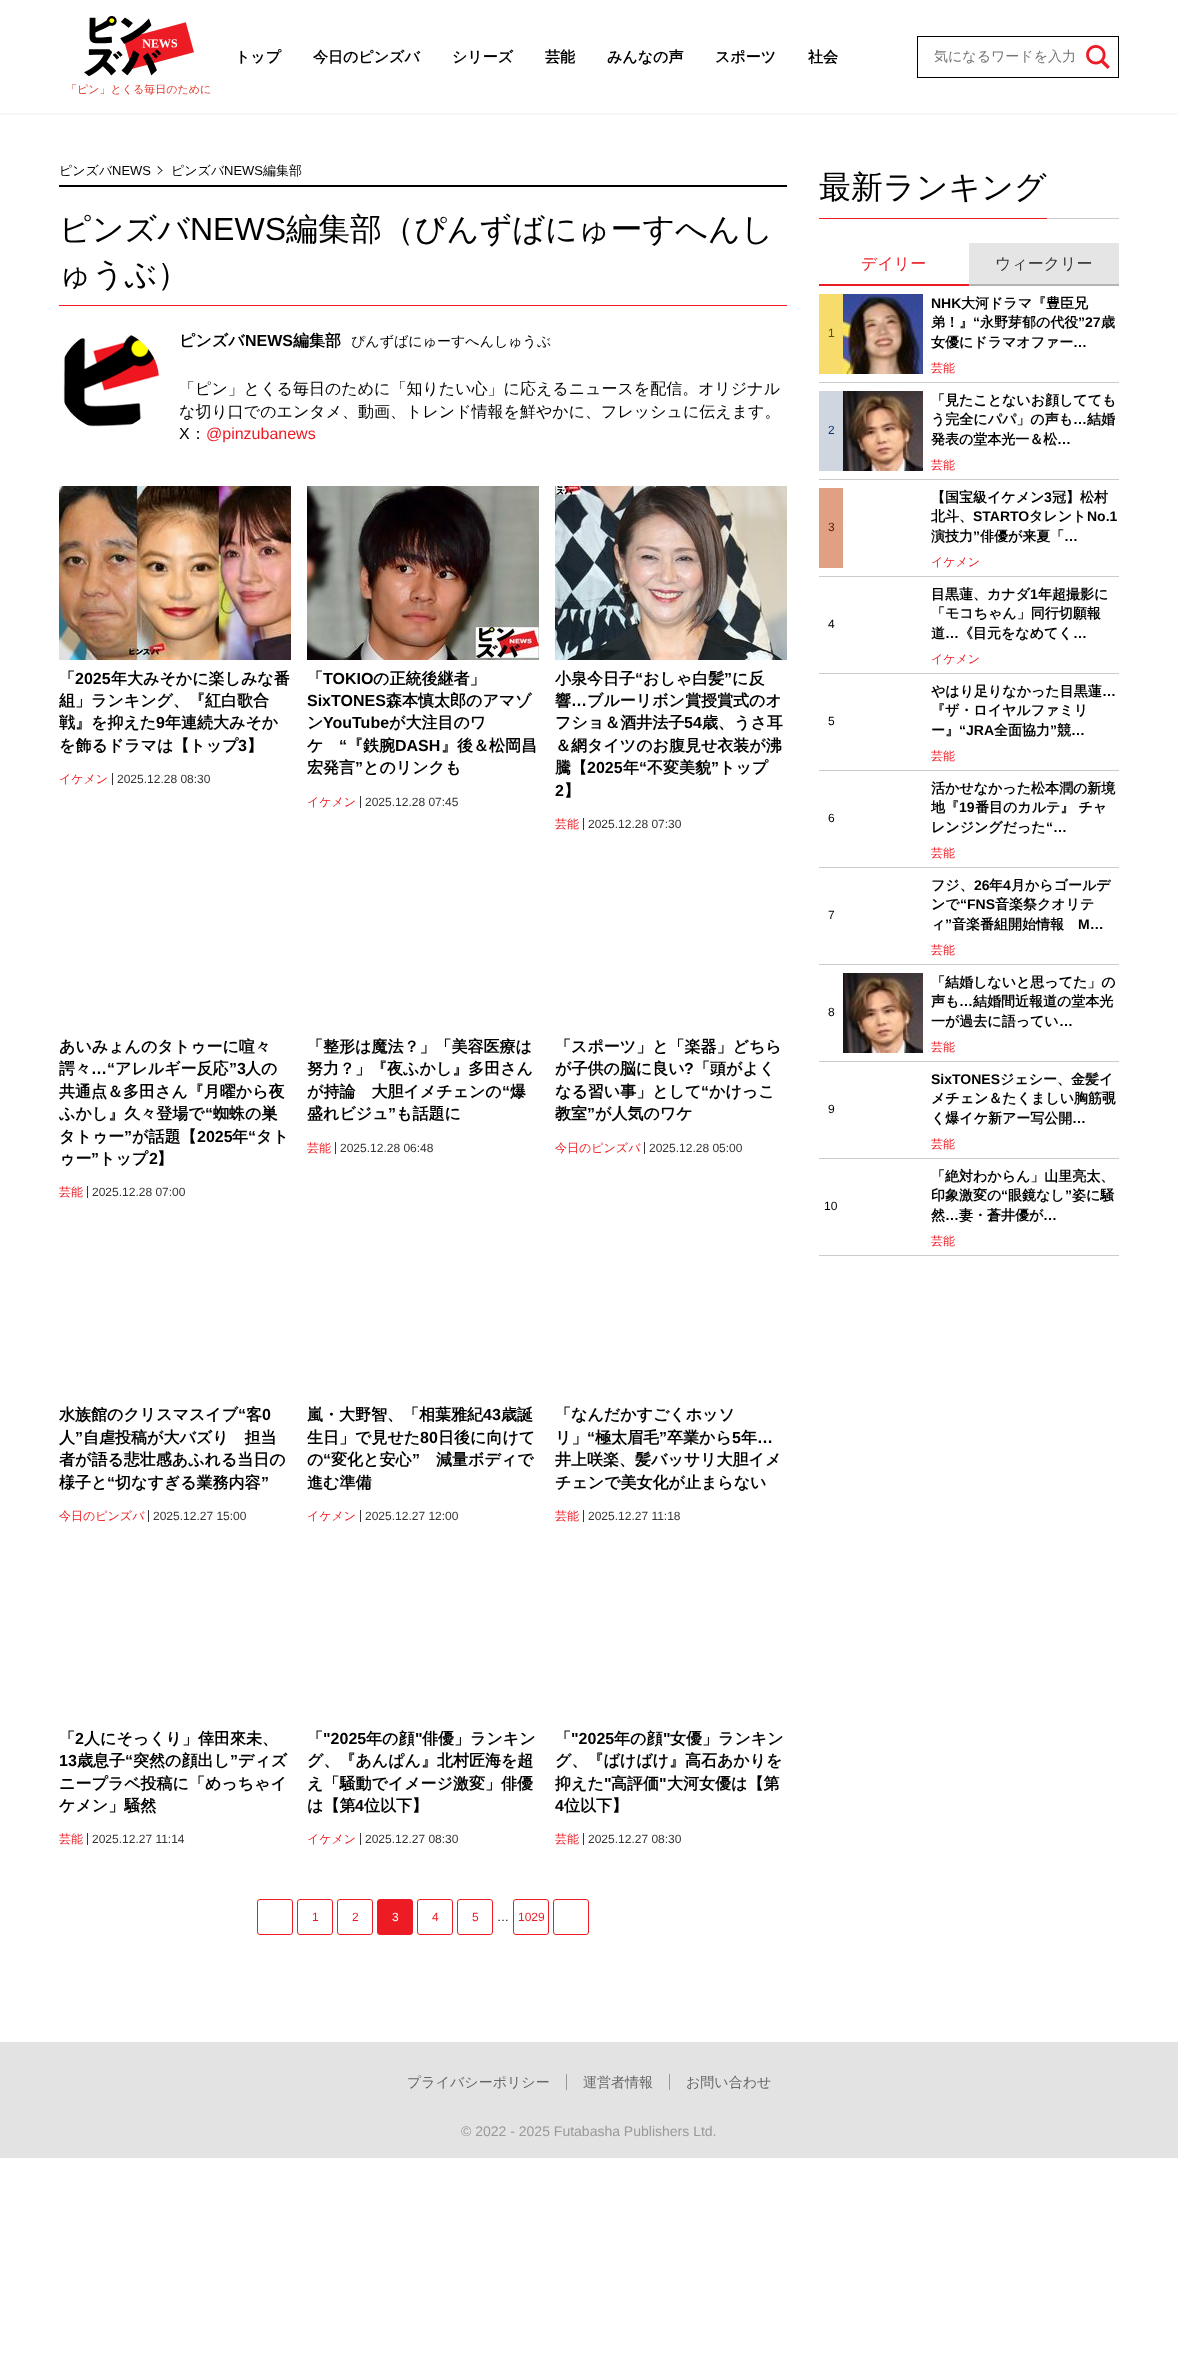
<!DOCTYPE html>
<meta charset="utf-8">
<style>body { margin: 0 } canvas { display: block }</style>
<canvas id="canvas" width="1178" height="2380"></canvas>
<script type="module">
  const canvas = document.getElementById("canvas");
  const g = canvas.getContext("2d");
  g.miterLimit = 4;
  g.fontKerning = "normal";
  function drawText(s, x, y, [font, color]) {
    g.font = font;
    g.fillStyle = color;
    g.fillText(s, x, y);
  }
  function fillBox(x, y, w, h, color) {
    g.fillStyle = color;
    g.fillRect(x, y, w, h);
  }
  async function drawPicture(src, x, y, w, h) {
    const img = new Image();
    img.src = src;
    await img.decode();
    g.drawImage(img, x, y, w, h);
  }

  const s1 = ["bold 15px WenQuanYi Zen Hei", "#000000"];
  const s2 = ["500 14px WenQuanYi Zen Hei", "#757575"];
  const s3 = ["500 11px WenQuanYi Zen Hei", "#E13A2F"];
  const s4 = ["500 13px WenQuanYi Zen Hei", "#000000"];
  const s5 = ["13px Liberation Sans", "#000000"];
  const s6 = ["500 32px WenQuanYi Zen Hei", "#000000"];
  const s7 = ["32px Liberation Sans", "#000000"];
  const s8 = ["bold 16px WenQuanYi Zen Hei", "#000000"];
  const s9 = ["bold 16px Liberation Sans", "#000000"];
  const s10 = ["500 14px WenQuanYi Zen Hei", "#000000"];
  const s11 = ["500 16px WenQuanYi Zen Hei", "#000000"];
  const s12 = ["16px Liberation Sans", "#000000"];
  const s13 = ["16px Liberation Sans", "#ED1C24"];
  const s14 = ["500 12px WenQuanYi Zen Hei", "#ED1C24"];
  const s15 = ["12px Liberation Sans", "#333333"];
  const s16 = ["12px Liberation Sans", "#ED1C24"];
  const s17 = ["12px Liberation Sans", "#FFFFFF"];
  const s18 = ["12px Liberation Sans", "#000000"];
  const s19 = ["500 16px WenQuanYi Zen Hei", "#ED1C24"];
  const s20 = ["500 16px WenQuanYi Zen Hei", "#333333"];
  const s21 = ["12px Liberation Sans", "#614D00"];
  const s22 = ["bold 14px Liberation Sans", "#000000"];
  const s23 = ["bold 14px WenQuanYi Zen Hei", "#000000"];
  const s24 = ["12px Liberation Sans", "#11336E"];
  const s25 = ["12px Liberation Sans", "#5E2509"];
  const s26 = ["500 14px WenQuanYi Zen Hei", "#666666"];
  const s27 = ["14px Liberation Sans", "#999999"];

  fillBox(0, 0, 1178, 2380, "#FFFFFF");
  g.save();
  g.beginPath();
  g.rect(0, 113, 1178, 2);
  g.clip();
  g.fillStyle = "rgba(0, 0, 0, 0.1)";
  g.filter = "blur(2.5px)";
  g.beginPath();
  g.rect(0, 0, 1178, 113);
  g.fill();
  g.filter = "none";
  g.restore();
  drawText("トップ", 235, 62, s1);
  drawText("今日のピンズバ", 313, 62, s1);
  drawText("シリーズ", 452, 62, s1);
  drawText("芸能", 545, 62, s1);
  drawText("みんなの声", 607, 62, s1);
  drawText("スポーツ", 715, 62, s1);
  drawText("社会", 808, 62, s1);
  g.strokeStyle = "#000000";
  g.strokeRect(917.5, 36.5, 201, 41);
  await drawPicture("pic1.png", 1086, 45, 24, 24);
  drawText("気になるワードを入力", 934, 61, s2);
  await drawPicture("pic2.png", 84, 16, 110, 60);
  drawText("「ピン」とくる毎日のために", 66, 93, s3);
  fillBox(59, 185, 728, 2, "#000000");
  drawText("ピンズバ", 59, 175, s4);
  drawText("NEWS", 112, 175, s5);
  g.beginPath();
  g.moveTo(158, 166);
  g.lineTo(162.5, 170.5);
  g.lineTo(162, 171);
  g.lineTo(157.5, 167);
  g.closePath();
  g.fill();
  g.beginPath();
  g.moveTo(162, 170);
  g.lineTo(162.5, 170.5);
  g.lineTo(158, 174.5);
  g.lineTo(157.5, 174);
  g.closePath();
  g.fill();
  drawText("ピンズバ", 171, 175, s4);
  drawText("NEWS", 224, 175, s5);
  drawText("編集部", 263, 175, s4);
  fillBox(59, 305, 728, 1, "#ED1C24");
  drawText("ピンズバ", 59, 240, s6);
  drawText("NEWS", 190, 240, s7);
  drawText("編集部（ぴんずばにゅーすへんし", 286, 240, s6);
  drawText("ゅうぶ）", 59, 285, s6);
  await drawPicture("pic3.png", 63, 335, 96, 92);
  drawText("ピンズバ", 179, 346, s8);
  drawText("NEWS", 245, 346, s9);
  drawText("編集部", 293, 346, s8);
  drawText("ぴんずばにゅーすへんしゅうぶ", 351, 346, s10);
  drawText("「ピン」とくる毎日のために「知りたい心」に応えるニュースを配信。オリジナル", 179, 394, s11);
  drawText("な切り口でのエンタメ、動画、トレンド情報を鮮やかに、フレッシュに伝えます。", 179, 417, s11);
  drawText("X", 179, 439, s12);
  drawText("：", 190, 439, s11);
  drawText("@pinzubanews", 206, 439, s13);
  await drawPicture("pic4.png", 59, 486, 232, 174);
  drawText("「", 59, 684, s8);
  drawText("2025", 75, 684, s9);
  drawText("年大みそかに楽しみな番", 111, 684, s8);
  drawText("組」ランキング、『紅白歌合", 59, 706, s8);
  drawText("戦』を抑えた", 59, 728, s8);
  drawText("9", 156, 728, s9);
  drawText("年連続大みそか", 165, 728, s8);
  drawText("を飾るドラマは【トップ", 59, 751, s8);
  drawText("3", 238, 751, s9);
  drawText("】", 247, 751, s8);
  fillBox(112, 773, 1, 12, "#333333");
  drawText("イケメン", 59, 783, s14);
  drawText("2025.12.28 08:30", 117, 783, s15);
  await drawPicture("pic5.png", 307, 486, 232, 174);
  drawText("「", 307, 684, s8);
  drawText("TOKIO", 323, 684, s9);
  drawText("の正統後継者」", 373, 684, s8);
  drawText("SixTONES", 307, 706, s9);
  drawText("森本慎太郎のアマゾ", 386, 706, s8);
  drawText("ン", 307, 728, s8);
  drawText("YouTube", 323, 728, s9);
  drawText("が大注目のワ", 389, 728, s8);
  drawText("ケ", 307, 751, s8);
  drawText("“", 339, 751, s9);
  drawText("『鉄腕", 347, 751, s8);
  drawText("DASH", 395, 751, s9);
  drawText("』後＆松岡昌", 441, 751, s8);
  drawText("宏発言", 307, 773, s8);
  drawText("”", 355, 773, s9);
  drawText("とのリンクも", 363, 773, s8);
  fillBox(360, 796, 1, 12, "#333333");
  drawText("イケメン", 307, 806, s14);
  drawText("2025.12.28 07:45", 365, 806, s15);
  await drawPicture("pic6.png", 555, 486, 232, 174);
  drawText("小泉今日子", 555, 684, s8);
  drawText("“", 635, 684, s9);
  drawText("おしゃ白髪", 643, 684, s8);
  drawText("”", 724, 684, s9);
  drawText("に反", 732, 684, s8);
  drawText("響", 555, 706, s8);
  drawText("…", 571, 706, s9);
  drawText("ブルーリボン賞授賞式のオ", 587, 706, s8);
  drawText("フショ＆酒井法子", 555, 728, s8);
  drawText("54", 684, 728, s9);
  drawText("歳、うさ耳", 702, 728, s8);
  drawText("＆網タイツのお腹見せ衣装が沸", 555, 751, s8);
  drawText("騰【", 555, 773, s8);
  drawText("2025", 587, 773, s9);
  drawText("年", 623, 773, s8);
  drawText("“", 639, 773, s9);
  drawText("不変美貌", 647, 773, s8);
  drawText("”", 711, 773, s9);
  drawText("トップ", 719, 773, s8);
  drawText("2", 555, 796, s9);
  drawText("】", 564, 796, s8);
  fillBox(583, 818, 1, 12, "#333333");
  drawText("芸能", 555, 828, s14);
  drawText("2025.12.28 07:30", 588, 828, s15);
  drawText("あいみょんのタトゥーに喧々", 59, 1052, s8);
  drawText("諤々", 59, 1074, s8);
  drawText("…“", 91, 1074, s9);
  drawText("アレルギー反応", 115, 1074, s8);
  drawText("”3", 229, 1074, s9);
  drawText("人の", 245, 1074, s8);
  drawText("共通点＆多田さん『月曜から夜", 59, 1097, s8);
  drawText("ふかし』久々登場で", 59, 1119, s8);
  drawText("“", 205, 1119, s9);
  drawText("蜘蛛の巣", 213, 1119, s8);
  drawText("タトゥー", 59, 1142, s8);
  drawText("”", 124, 1142, s9);
  drawText("が話題【", 132, 1142, s8);
  drawText("2025", 197, 1142, s9);
  drawText("年", 232, 1142, s8);
  drawText("“", 248, 1142, s9);
  drawText("タト", 256, 1142, s8);
  drawText("ゥー", 59, 1164, s8);
  drawText("”", 91, 1164, s9);
  drawText("トップ", 99, 1164, s8);
  drawText("2", 149, 1164, s9);
  drawText("】", 157, 1164, s8);
  fillBox(87, 1186, 1, 12, "#333333");
  drawText("芸能", 59, 1196, s14);
  drawText("2025.12.28 07:00", 92, 1196, s15);
  drawText("「整形は魔法？」「美容医療は", 307, 1052, s8);
  drawText("努力？」『夜ふかし』多田さん", 307, 1074, s8);
  drawText("が持論　大胆イメチェンの", 307, 1097, s8);
  drawText("“", 502, 1097, s9);
  drawText("爆", 510, 1097, s8);
  drawText("盛れビジュ", 307, 1119, s8);
  drawText("”", 388, 1119, s9);
  drawText("も話題に", 396, 1119, s8);
  fillBox(335, 1142, 1, 12, "#333333");
  drawText("芸能", 307, 1152, s14);
  drawText("2025.12.28 06:48", 340, 1152, s15);
  drawText("「スポーツ」と「楽器」どちら", 555, 1052, s8);
  drawText("が子供の脳に良い", 555, 1074, s8);
  drawText("?", 684, 1074, s9);
  drawText("「頭がよく", 694, 1074, s8);
  drawText("なる習い事」として", 555, 1097, s8);
  drawText("“", 701, 1097, s9);
  drawText("かけっこ", 709, 1097, s8);
  drawText("教室", 555, 1119, s8);
  drawText("”", 587, 1119, s9);
  drawText("が人気のワケ", 595, 1119, s8);
  fillBox(644, 1142, 1, 12, "#333333");
  drawText("今日のピンズバ", 555, 1152, s14);
  drawText("2025.12.28 05:00", 649, 1152, s15);
  drawText("水族館のクリスマスイブ", 59, 1420, s8);
  drawText("“", 238, 1420, s9);
  drawText("客", 246, 1420, s8);
  drawText("0", 262, 1420, s9);
  drawText("人", 59, 1443, s8);
  drawText("”", 75, 1443, s9);
  drawText("自虐投稿が大バズり　担当", 83, 1443, s8);
  drawText("者が語る悲壮感あふれる当日の", 59, 1465, s8);
  drawText("様子と", 59, 1488, s8);
  drawText("“", 107, 1488, s9);
  drawText("切なすぎる業務内容", 115, 1488, s8);
  drawText("”", 261, 1488, s9);
  fillBox(148, 1510, 1, 12, "#333333");
  drawText("今日のピンズバ", 59, 1520, s14);
  drawText("2025.12.27 15:00", 153, 1520, s15);
  drawText("嵐・大野智、「相葉雅紀", 307, 1420, s8);
  drawText("43", 483, 1420, s9);
  drawText("歳誕", 501, 1420, s8);
  drawText("生日」で見せた", 307, 1443, s8);
  drawText("80", 420, 1443, s9);
  drawText("日後に向けて", 438, 1443, s8);
  drawText("の", 307, 1465, s8);
  drawText("“", 323, 1465, s9);
  drawText("変化と安心", 331, 1465, s8);
  drawText("”", 412, 1465, s9);
  drawText("減量ボディで", 436, 1465, s8);
  drawText("進む準備", 307, 1488, s8);
  fillBox(360, 1510, 1, 12, "#333333");
  drawText("イケメン", 307, 1520, s14);
  drawText("2025.12.27 12:00", 365, 1520, s15);
  drawText("「なんだかすごくホッソ", 555, 1420, s8);
  drawText("リ」", 555, 1443, s8);
  drawText("“", 587, 1443, s9);
  drawText("極太眉毛", 595, 1443, s8);
  drawText("”", 659, 1443, s9);
  drawText("卒業から", 667, 1443, s8);
  drawText("5", 732, 1443, s9);
  drawText("年", 741, 1443, s8);
  drawText("…", 757, 1443, s9);
  drawText("井上咲楽、髪バッサリ大胆イメ", 555, 1465, s8);
  drawText("チェンで美女化が止まらない", 555, 1488, s8);
  fillBox(583, 1510, 1, 12, "#333333");
  drawText("芸能", 555, 1520, s14);
  drawText("2025.12.27 11:18", 588, 1520, s15);
  drawText("「", 59, 1744, s8);
  drawText("2", 75, 1744, s9);
  drawText("人にそっくり」倖田來未、", 84, 1744, s8);
  drawText("13", 59, 1766, s9);
  drawText("歳息子", 77, 1766, s8);
  drawText("“", 125, 1766, s9);
  drawText("突然の顔出し", 133, 1766, s8);
  drawText("”", 230, 1766, s9);
  drawText("ディズ", 238, 1766, s8);
  drawText("ニープラベ投稿に「めっちゃイ", 59, 1789, s8);
  drawText("ケメン」騒然", 59, 1811, s8);
  fillBox(87, 1833, 1, 12, "#333333");
  drawText("芸能", 59, 1843, s14);
  drawText("2025.12.27 11:14", 92, 1843, s15);
  drawText("「", 307, 1744, s8);
  drawText("\"2025", 323, 1744, s9);
  drawText("年の顔", 366, 1744, s8);
  drawText("\"", 415, 1744, s9);
  drawText("俳優」ランキン", 422, 1744, s8);
  drawText("グ、『あんぱん』北村匠海を超", 307, 1766, s8);
  drawText("え「騒動でイメージ激変」俳優", 307, 1789, s8);
  drawText("は【第", 307, 1811, s8);
  drawText("4", 355, 1811, s9);
  drawText("位以下】", 364, 1811, s8);
  fillBox(360, 1833, 1, 12, "#333333");
  drawText("イケメン", 307, 1843, s14);
  drawText("2025.12.27 08:30", 365, 1843, s15);
  drawText("「", 555, 1744, s8);
  drawText("\"2025", 571, 1744, s9);
  drawText("年の顔", 614, 1744, s8);
  drawText("\"", 663, 1744, s9);
  drawText("女優」ランキン", 670, 1744, s8);
  drawText("グ、『ばけばけ』高石あかりを", 555, 1766, s8);
  drawText("抑えた", 555, 1789, s8);
  drawText("\"", 604, 1789, s9);
  drawText("高評価", 611, 1789, s8);
  drawText("\"", 659, 1789, s9);
  drawText("大河女優は【第", 667, 1789, s8);
  drawText("4", 555, 1811, s9);
  drawText("位以下】", 564, 1811, s8);
  fillBox(583, 1833, 1, 12, "#333333");
  drawText("芸能", 555, 1843, s14);
  drawText("2025.12.27 08:30", 588, 1843, s15);
  g.beginPath();
  g.roundRect(257.5, 1899.5, 35, 35, 2.5);
  g.strokeStyle = "#ED1C24";
  g.stroke();
  g.beginPath();
  g.roundRect(297.5, 1899.5, 35, 35, 2.5);
  g.stroke();
  drawText("1", 312, 1921, s16);
  g.beginPath();
  g.roundRect(337.5, 1899.5, 35, 35, 2.5);
  g.stroke();
  drawText("2", 352, 1921, s16);
  g.beginPath();
  g.roundRect(377.5, 1899.5, 35, 35, 2.5);
  g.fill();
  g.stroke();
  drawText("3", 392, 1921, s17);
  g.beginPath();
  g.roundRect(417.5, 1899.5, 35, 35, 2.5);
  g.stroke();
  drawText("4", 432, 1921, s16);
  g.beginPath();
  g.roundRect(457.5, 1899.5, 35, 35, 2.5);
  g.stroke();
  drawText("5", 472, 1921, s16);
  drawText("…", 497, 1921, s18);
  g.beginPath();
  g.roundRect(513.5, 1899.5, 35, 35, 2.5);
  g.stroke();
  drawText("1029", 518, 1921, s16);
  g.beginPath();
  g.roundRect(553.5, 1899.5, 35, 35, 2.5);
  g.stroke();
  fillBox(1047, 218, 72, 1, "#CCCCCC");
  fillBox(819, 218, 228, 1, "#ED1C24");
  drawText("最新ランキング", 819, 198, s6);
  fillBox(819, 284, 150, 2, "#ED1C24");
  drawText("デイリー", 861, 269, s19);
  fillBox(969, 243, 150, 41, "#E5E5E5");
  fillBox(969, 284, 150, 2, "#B4B4B4");
  drawText("ウィークリー", 995, 269, s20);
  fillBox(819, 382, 300, 1, "#CCCCCC");
  fillBox(819, 294, 24, 80, "#F7DB6B");
  drawText("1", 828, 337, s21);
  await drawPicture("pic7.png", 843, 294, 80, 80);
  drawText("NHK", 931, 308, s22);
  drawText("大河ドラマ『豊臣兄", 961, 308, s23);
  drawText("弟！』", 931, 327, s23);
  drawText("“", 973, 327, s22);
  drawText("永野芽郁の代役", 980, 327, s23);
  drawText("”27", 1078, 327, s22);
  drawText("歳", 1101, 327, s23);
  drawText("女優にドラマオファー", 931, 347, s23);
  drawText("…", 1073, 347, s22);
  drawText("芸能", 931, 372, s14);
  fillBox(819, 479, 300, 1, "#CCCCCC");
  fillBox(819, 391, 24, 80, "#D0D6DF");
  drawText("2", 828, 434, s24);
  await drawPicture("pic8.png", 843, 391, 80, 80);
  drawText("「見たことないお顔してても", 931, 405, s23);
  drawText("う完全にパパ」の声も", 931, 424, s23);
  drawText("…", 1073, 424, s22);
  drawText("結婚", 1087, 424, s23);
  drawText("発表の堂本光一＆松", 931, 444, s23);
  drawText("…", 1057, 444, s22);
  drawText("芸能", 931, 469, s14);
  fillBox(819, 576, 300, 1, "#CCCCCC");
  fillBox(819, 488, 24, 80, "#E0A182");
  drawText("3", 828, 531, s25);
  drawText("【国宝級イケメン", 931, 502, s23);
  drawText("3", 1044, 502, s22);
  drawText("冠】松村", 1052, 502, s23);
  drawText("北斗、", 931, 521, s23);
  drawText("STARTO", 973, 521, s22);
  drawText("タレント", 1029, 521, s23);
  drawText("No.1", 1087, 521, s22);
  drawText("演技力", 931, 541, s23);
  drawText("”", 973, 541, s22);
  drawText("俳優が来夏「", 980, 541, s23);
  drawText("…", 1064, 541, s22);
  drawText("イケメン", 931, 566, s14);
  fillBox(819, 673, 300, 1, "#CCCCCC");
  drawText("4", 828, 628, s18);
  drawText("目黒蓮、カナダ", 931, 599, s23);
  drawText("1", 1030, 599, s22);
  drawText("年超撮影に", 1038, 599, s23);
  drawText("「モコちゃん」同行切願報", 931, 618, s23);
  drawText("道", 931, 638, s23);
  drawText("…", 945, 638, s22);
  drawText("《目元をなめてく", 959, 638, s23);
  drawText("…", 1073, 638, s22);
  drawText("イケメン", 931, 663, s14);
  fillBox(819, 770, 300, 1, "#CCCCCC");
  drawText("5", 828, 725, s18);
  drawText("やはり足りなかった目黒蓮", 931, 696, s23);
  drawText("…", 1102, 696, s22);
  drawText("『ザ・ロイヤルファミリ", 931, 715, s23);
  drawText("“JRA", 959, 735, s22);
  drawText("全面協力", 994, 735, s23);
  drawText("”", 1050, 735, s22);
  drawText("競", 1057, 735, s23);
  drawText("ー』", 931, 735, s23);
  drawText("…", 1071, 735, s22);
  drawText("芸能", 931, 760, s14);
  fillBox(819, 867, 300, 1, "#CCCCCC");
  drawText("6", 828, 822, s18);
  drawText("活かせなかった松本潤の新境", 931, 793, s23);
  drawText("地『", 931, 812, s23);
  drawText("19", 959, 812, s22);
  drawText("番目のカルテ』 チャ", 975, 812, s23);
  drawText("レンジングだった", 931, 832, s23);
  drawText("“…", 1046, 832, s22);
  drawText("芸能", 931, 857, s14);
  fillBox(819, 964, 300, 1, "#CCCCCC");
  drawText("7", 828, 919, s18);
  drawText("フジ、", 931, 890, s23);
  drawText("26", 974, 890, s22);
  drawText("年", 989, 890, s23);
  drawText("4", 1003, 890, s22);
  drawText("月からゴールデ", 1011, 890, s23);
  drawText("ンで", 931, 909, s23);
  drawText("“FNS", 960, 909, s22);
  drawText("音楽祭クオリテ", 995, 909, s23);
  drawText("ィ", 931, 929, s23);
  drawText("”", 945, 929, s22);
  drawText("音楽番組開始情報", 952, 929, s23);
  drawText("M…", 1078, 929, s22);
  drawText("芸能", 931, 954, s14);
  fillBox(819, 1061, 300, 1, "#CCCCCC");
  drawText("8", 828, 1016, s18);
  await drawPicture("pic9.png", 843, 973, 80, 80);
  drawText("「結婚しないと思ってた」の", 931, 987, s23);
  drawText("声も", 931, 1006, s23);
  drawText("…", 959, 1006, s22);
  drawText("結婚間近報道の堂本光", 973, 1006, s23);
  drawText("一が過去に語ってい", 931, 1026, s23);
  drawText("…", 1059, 1026, s22);
  drawText("芸能", 931, 1051, s14);
  fillBox(819, 1158, 300, 1, "#CCCCCC");
  drawText("9", 828, 1113, s18);
  drawText("SixTONES", 931, 1084, s22);
  drawText("ジェシー、金髪イ", 1000, 1084, s23);
  drawText("メチェン＆たくましい胸筋覗", 931, 1103, s23);
  drawText("く爆イケ新アー写公開", 931, 1123, s23);
  drawText("…", 1072, 1123, s22);
  drawText("芸能", 931, 1148, s14);
  fillBox(819, 1255, 300, 1, "#CCCCCC");
  drawText("10", 824, 1210, s18);
  drawText("「絶対わからん」山里亮太、", 931, 1181, s23);
  drawText("印象激変の", 931, 1200, s23);
  drawText("“", 1001, 1200, s22);
  drawText("眼鏡なし", 1008, 1200, s23);
  drawText("”", 1065, 1200, s22);
  drawText("姿に騒", 1072, 1200, s23);
  drawText("然", 931, 1220, s23);
  drawText("…", 945, 1220, s22);
  drawText("妻・蒼井優が", 959, 1220, s23);
  drawText("…", 1043, 1220, s22);
  drawText("芸能", 931, 1245, s14);
  fillBox(0, 2042, 1178, 116, "#E3E3E3");
  fillBox(566, 2074, 1, 16, "#999999");
  drawText("プライバシーポリシー", 407, 2087, s26);
  fillBox(669, 2074, 1, 16, "#999999");
  drawText("運営者情報", 583, 2087, s26);
  drawText("お問い合わせ", 686, 2087, s26);
  drawText("© 2022 - 2025 Futabasha Publishers Ltd.", 461, 2136, s27);
</script>
